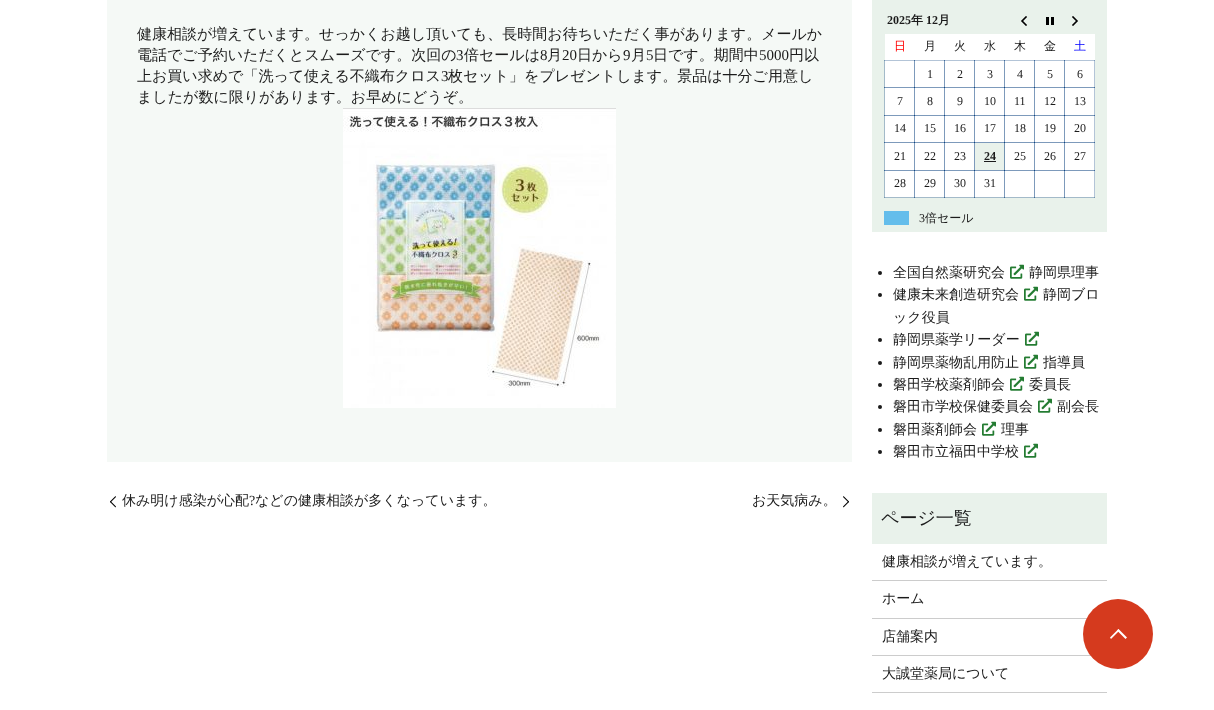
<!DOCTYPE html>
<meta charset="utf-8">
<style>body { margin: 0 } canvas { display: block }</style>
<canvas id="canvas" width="1214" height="710"></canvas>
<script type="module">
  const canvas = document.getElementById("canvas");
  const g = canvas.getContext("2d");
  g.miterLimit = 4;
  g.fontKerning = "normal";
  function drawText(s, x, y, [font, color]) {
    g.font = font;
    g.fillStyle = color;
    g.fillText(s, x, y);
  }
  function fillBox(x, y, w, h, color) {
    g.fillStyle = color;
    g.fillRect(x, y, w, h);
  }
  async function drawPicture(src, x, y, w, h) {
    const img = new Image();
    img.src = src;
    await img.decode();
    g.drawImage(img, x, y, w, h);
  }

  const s1 = ["500 15px WenQuanYi Zen Hei", "#1B1B1B"];
  const s2 = ["15px Liberation Serif", "#1B1B1B"];
  const s3 = ["500 14px WenQuanYi Zen Hei", "#1B1B1B"];
  const s4 = ["14px Liberation Serif", "#1B1B1B"];
  const s5 = ["bold 12px Liberation Serif", "#1B1B1B"];
  const s6 = ["bold 12px WenQuanYi Zen Hei", "#1B1B1B"];
  const s7 = ["500 12px WenQuanYi Zen Hei", "#FF0000"];
  const s8 = ["500 12px WenQuanYi Zen Hei", "#1B1B1B"];
  const s9 = ["500 12px WenQuanYi Zen Hei", "#0000FF"];
  const s10 = ["12px Liberation Serif", "#1B1B1B"];
  const s11 = ["500 18px WenQuanYi Zen Hei", "#1B1B1B"];

  fillBox(0, 0, 1214, 710, "#FFFFFF");
  fillBox(107, 0, 745, 462, "#F5F9F6");
  drawText("健康相談が増えています。せっかくお越し頂いても、長時間お待ちいただく事があります。メールか", 137, 39, s1);
  drawText("電話でご予約いただくとスムーズです。次回の", 137, 60, s1);
  drawText("3", 456, 60, s2);
  drawText("倍セールは", 464, 60, s1);
  drawText("8", 540, 60, s2);
  drawText("月", 547, 60, s1);
  drawText("20", 562, 60, s2);
  drawText("日から", 577, 60, s1);
  drawText("9", 623, 60, s2);
  drawText("月", 631, 60, s1);
  drawText("5", 646, 60, s2);
  drawText("日です。期間中", 653, 60, s1);
  drawText("5000", 759, 60, s2);
  drawText("円以", 789, 60, s1);
  drawText("上お買い求めで「洗って使える不織布クロス", 137, 81, s1);
  drawText("3", 441, 81, s2);
  drawText("枚セット」をプレゼントします。景品は十分ご用意し", 448, 81, s1);
  drawText("ましたが数に限りがあります。お早めにどうぞ。", 137, 102, s1);
  await drawPicture("pic1.png", 343, 108, 273, 300);
  g.fillStyle = "#000000";
  g.beginPath();
  g.moveTo(110, 501.5);
  g.lineTo(115.5, 496);
  g.lineTo(116, 497);
  g.lineTo(110.5, 502.5);
  g.closePath();
  g.fill();
  drawText("休み明け感染が心配", 122, 505, s3);
  drawText("?", 249, 505, s4);
  drawText("などの健康相談が多くなっています。", 255, 505, s3);
  g.fillStyle = "#000000";
  g.beginPath();
  g.moveTo(115.5, 507.5);
  g.lineTo(110, 502);
  g.lineTo(110.5, 501);
  g.lineTo(116, 506.5);
  g.closePath();
  g.fill();
  drawText("お天気病み。", 752, 505, s3);
  g.fillStyle = "#000000";
  g.beginPath();
  g.moveTo(843.5, 496);
  g.lineTo(849, 501.5);
  g.lineTo(848.5, 502.5);
  g.lineTo(843, 497);
  g.closePath();
  g.fill();
  g.beginPath();
  g.moveTo(849, 502);
  g.lineTo(843.5, 507.5);
  g.lineTo(843, 506.5);
  g.lineTo(848.5, 501);
  g.closePath();
  g.fill();
  fillBox(872, 0, 235, 232, "#E9F2EB");
  fillBox(884, 60, 1, 138, "#A3BAC9");
  fillBox(884, 60, 1, 1, "#7293B1");
  fillBox(884, 87, 1, 1, "#386595");
  fillBox(884, 115, 1, 1, "#386595");
  fillBox(884, 142, 1, 1, "#386595");
  fillBox(1004, 142, 1, 29, "#7293B1");
  fillBox(884, 197, 211, 1, "#A3BAC9");
  fillBox(884, 197, 1, 1, "#7293B1");
  fillBox(884, 170, 1, 1, "#386595");
  fillBox(914, 197, 1, 1, "#386595");
  fillBox(944, 197, 1, 1, "#386595");
  fillBox(974, 197, 1, 1, "#386595");
  fillBox(1004, 197, 1, 1, "#386595");
  fillBox(1034, 197, 1, 1, "#386595");
  fillBox(1064, 197, 1, 1, "#386595");
  fillBox(1094, 197, 1, 1, "#7293B1");
  drawText("2025", 887, 24, s5);
  drawText("年", 911, 24, s6);
  drawText("12", 926, 24, s5);
  drawText("月", 938, 24, s6);
  await drawPicture("pic2.png", 1021, 16, 6, 10);
  await drawPicture("pic3.png", 1046, 17, 8, 8);
  await drawPicture("pic4.png", 1072, 16, 6, 10);
  fillBox(885, 34, 210, 26, "#FFFFFF");
  fillBox(885, 60, 210, 1, "#B3C4D7");
  fillBox(914, 60, 1, 1, "#3E699A");
  drawText("日", 894, 50, s7);
  fillBox(944, 60, 1, 1, "#3E699A");
  drawText("月", 924, 50, s8);
  fillBox(974, 60, 1, 1, "#3E699A");
  drawText("火", 954, 50, s8);
  fillBox(1004, 60, 1, 1, "#3E699A");
  drawText("水", 984, 50, s8);
  fillBox(1034, 60, 1, 1, "#3E699A");
  drawText("木", 1014, 50, s8);
  drawText("金", 1044, 50, s8);
  drawText("土", 1074, 50, s9);
  fillBox(885, 61, 29, 26, "#FFFFFF");
  fillBox(914, 61, 1, 54, "#7D9ABB");
  fillBox(885, 87, 30, 1, "#7D9ABB");
  fillBox(914, 87, 1, 1, "#0F4582");
  fillBox(915, 61, 29, 26, "#FFFFFF");
  fillBox(944, 61, 1, 54, "#7D9ABB");
  fillBox(915, 87, 30, 1, "#7D9ABB");
  fillBox(944, 87, 1, 1, "#0F4582");
  drawText("1", 927, 78, s10);
  fillBox(945, 61, 29, 26, "#FFFFFF");
  fillBox(974, 61, 1, 54, "#7D9ABB");
  fillBox(945, 87, 30, 1, "#7D9ABB");
  fillBox(974, 87, 1, 1, "#0F4582");
  drawText("2", 957, 78, s10);
  fillBox(975, 61, 29, 26, "#FFFFFF");
  fillBox(1004, 61, 1, 54, "#7D9ABB");
  fillBox(975, 87, 30, 1, "#7D9ABB");
  fillBox(1004, 87, 1, 1, "#0F4582");
  drawText("3", 987, 78, s10);
  fillBox(1005, 61, 29, 26, "#FFFFFF");
  fillBox(1034, 61, 1, 54, "#7D9ABB");
  fillBox(1005, 87, 30, 1, "#7D9ABB");
  fillBox(1034, 87, 1, 1, "#0F4582");
  drawText("4", 1017, 78, s10);
  fillBox(1035, 61, 29, 26, "#FFFFFF");
  fillBox(1064, 61, 1, 54, "#7D9ABB");
  fillBox(1035, 87, 30, 1, "#7D9ABB");
  drawText("5", 1047, 78, s10);
  fillBox(1065, 61, 29, 26, "#FFFFFF");
  fillBox(1094, 61, 1, 136, "#B3C4D7");
  fillBox(1064, 60, 1, 1, "#3E699A");
  fillBox(1094, 60, 1, 1, "#7D9ABB");
  drawText("6", 1077, 78, s10);
  fillBox(885, 88, 29, 27, "#FFFFFF");
  drawText("7", 897, 105, s10);
  fillBox(915, 88, 29, 27, "#FFFFFF");
  drawText("8", 927, 105, s10);
  fillBox(945, 88, 29, 27, "#FFFFFF");
  drawText("9", 957, 105, s10);
  fillBox(975, 88, 29, 27, "#FFFFFF");
  drawText("10", 984, 105, s10);
  fillBox(1005, 88, 29, 27, "#FFFFFF");
  drawText("11", 1014, 105, s10);
  fillBox(1035, 88, 29, 27, "#FFFFFF");
  drawText("12", 1044, 105, s10);
  fillBox(1065, 88, 29, 27, "#FFFFFF");
  fillBox(1064, 87, 31, 1, "#7D9ABB");
  fillBox(1064, 87, 1, 1, "#0F4582");
  fillBox(1094, 87, 1, 1, "#3E699A");
  drawText("13", 1074, 105, s10);
  fillBox(885, 116, 29, 26, "#FFFFFF");
  fillBox(885, 115, 180, 1, "#7D9ABB");
  fillBox(914, 115, 1, 55, "#7D9ABB");
  fillBox(914, 115, 1, 1, "#0F4582");
  fillBox(885, 142, 30, 1, "#7D9ABB");
  fillBox(914, 142, 1, 1, "#0F4582");
  drawText("14", 894, 132, s10);
  fillBox(915, 116, 29, 26, "#FFFFFF");
  fillBox(944, 115, 1, 55, "#7D9ABB");
  fillBox(944, 115, 1, 1, "#0F4582");
  fillBox(915, 142, 30, 1, "#7D9ABB");
  fillBox(944, 142, 1, 1, "#0F4582");
  drawText("15", 924, 132, s10);
  fillBox(945, 116, 29, 26, "#FFFFFF");
  fillBox(974, 115, 1, 55, "#7D9ABB");
  fillBox(974, 115, 1, 1, "#0F4582");
  fillBox(945, 142, 30, 1, "#7D9ABB");
  fillBox(974, 142, 1, 1, "#0F4582");
  drawText("16", 954, 132, s10);
  fillBox(975, 116, 29, 26, "#FFFFFF");
  fillBox(1004, 115, 1, 28, "#7D9ABB");
  fillBox(1004, 115, 1, 1, "#0F4582");
  fillBox(975, 142, 30, 1, "#7D9ABB");
  fillBox(1004, 142, 1, 1, "#0F4582");
  drawText("17", 984, 132, s10);
  fillBox(1005, 116, 29, 26, "#FFFFFF");
  fillBox(1034, 115, 1, 55, "#7D9ABB");
  fillBox(1034, 115, 1, 1, "#0F4582");
  fillBox(1005, 142, 30, 1, "#7D9ABB");
  fillBox(1034, 142, 1, 1, "#0F4582");
  drawText("18", 1014, 132, s10);
  fillBox(1035, 116, 29, 26, "#FFFFFF");
  fillBox(1064, 115, 1, 55, "#7D9ABB");
  fillBox(1035, 142, 60, 1, "#7D9ABB");
  drawText("19", 1044, 132, s10);
  fillBox(1065, 116, 29, 26, "#FFFFFF");
  fillBox(1064, 115, 31, 1, "#7D9ABB");
  fillBox(1064, 115, 1, 1, "#0F4582");
  fillBox(1094, 115, 1, 1, "#3E699A");
  drawText("20", 1074, 132, s10);
  fillBox(885, 143, 29, 27, "#FFFFFF");
  drawText("21", 894, 160, s10);
  fillBox(915, 143, 29, 27, "#FFFFFF");
  drawText("22", 924, 160, s10);
  fillBox(945, 143, 29, 27, "#FFFFFF");
  drawText("23", 954, 160, s10);
  drawText("24", 984, 160, s5);
  fillBox(984, 161, 12, 1, "#1B1B1B");
  fillBox(1005, 143, 29, 27, "#FFFFFF");
  drawText("25", 1014, 160, s10);
  fillBox(1035, 143, 29, 27, "#FFFFFF");
  drawText("26", 1044, 160, s10);
  fillBox(1065, 143, 29, 27, "#FFFFFF");
  fillBox(1064, 142, 1, 1, "#0F4582");
  fillBox(1094, 142, 1, 1, "#3E699A");
  drawText("27", 1074, 160, s10);
  fillBox(885, 171, 29, 26, "#FFFFFF");
  fillBox(885, 170, 180, 1, "#7D9ABB");
  fillBox(914, 170, 1, 27, "#7D9ABB");
  fillBox(914, 170, 1, 1, "#0F4582");
  drawText("28", 894, 187, s10);
  fillBox(915, 171, 29, 26, "#FFFFFF");
  fillBox(944, 170, 1, 27, "#7D9ABB");
  fillBox(944, 170, 1, 1, "#0F4582");
  drawText("29", 924, 187, s10);
  fillBox(945, 171, 29, 26, "#FFFFFF");
  fillBox(974, 170, 1, 27, "#7D9ABB");
  fillBox(974, 170, 1, 1, "#0F4582");
  drawText("30", 954, 187, s10);
  fillBox(975, 171, 29, 26, "#FFFFFF");
  fillBox(1004, 170, 1, 27, "#7D9ABB");
  fillBox(1004, 170, 1, 1, "#0F4582");
  drawText("31", 984, 187, s10);
  fillBox(1005, 171, 29, 26, "#FFFFFF");
  fillBox(1034, 170, 1, 27, "#7D9ABB");
  fillBox(1034, 170, 1, 1, "#0F4582");
  fillBox(1035, 171, 29, 26, "#FFFFFF");
  fillBox(1064, 170, 1, 27, "#7D9ABB");
  fillBox(1065, 171, 29, 26, "#FFFFFF");
  fillBox(1064, 170, 31, 1, "#7D9ABB");
  fillBox(1064, 170, 1, 1, "#0F4582");
  fillBox(1094, 170, 1, 1, "#3E699A");
  fillBox(884, 211, 25, 14, "#64BDEB");
  drawText("3", 919, 222, s10);
  drawText("倍セール", 925, 222, s8);
  g.beginPath();
  g.arc(880, 273, 2, 0, Math.PI * 2);
  g.fill();
  drawText("全国自然薬研究会", 893, 277, s3);
  await drawPicture("pic5.png", 1010, 264, 14, 15);
  drawText("静岡県理事", 1029, 277, s3);
  g.beginPath();
  g.arc(880, 295, 2, 0, Math.PI * 2);
  g.fill();
  drawText("健康未来創造研究会", 893, 299, s3);
  await drawPicture("pic5.png", 1024, 286, 14, 15);
  drawText("静岡ブロ", 1043, 299, s3);
  drawText("ック役員", 893, 322, s3);
  g.beginPath();
  g.arc(880, 340, 2, 0, Math.PI * 2);
  g.fill();
  drawText("静岡県薬学リーダー", 893, 344, s3);
  await drawPicture("pic5.png", 1025, 331, 14, 15);
  g.beginPath();
  g.arc(880, 363, 2, 0, Math.PI * 2);
  g.fill();
  drawText("静岡県薬物乱用防止", 893, 367, s3);
  await drawPicture("pic5.png", 1024, 354, 14, 15);
  drawText("指導員", 1043, 367, s3);
  g.beginPath();
  g.arc(880, 385, 2, 0, Math.PI * 2);
  g.fill();
  drawText("磐田学校薬剤師会", 893, 389, s3);
  await drawPicture("pic5.png", 1010, 376, 14, 15);
  drawText("委員長", 1029, 389, s3);
  g.beginPath();
  g.arc(880, 407, 2, 0, Math.PI * 2);
  g.fill();
  drawText("磐田市学校保健委員会", 893, 411, s3);
  await drawPicture("pic5.png", 1038, 398, 14, 15);
  drawText("副会長", 1057, 411, s3);
  g.beginPath();
  g.arc(880, 430, 2, 0, Math.PI * 2);
  g.fill();
  drawText("磐田薬剤師会", 893, 434, s3);
  await drawPicture("pic5.png", 982, 421, 14, 15);
  drawText("理事", 1001, 434, s3);
  g.beginPath();
  g.arc(880, 452, 2, 0, Math.PI * 2);
  g.fill();
  drawText("磐田市立福田中学校", 893, 456, s3);
  await drawPicture("pic5.png", 1024, 443, 14, 15);
  fillBox(872, 493, 235, 51, "#E9F2EB");
  drawText("ページ一覧", 881, 524, s11);
  fillBox(872, 580, 235, 1, "#CCCCCC");
  drawText("健康相談が増えています。", 882, 566, s3);
  fillBox(872, 618, 215, 1, "#CCCCCC");
  drawText("ホーム", 882, 603, s3);
  fillBox(872, 655, 219, 1, "#CCCCCC");
  drawText("店舗案内", 882, 641, s3);
  fillBox(872, 692, 235, 1, "#CCCCCC");
  drawText("大誠堂薬局について", 882, 678, s3);
  g.fillStyle = "#D53A1E";
  g.beginPath();
  g.arc(1118, 634, 35, 0, Math.PI * 2);
  g.fill();
  g.fillStyle = "#FFFFFF";
  g.beginPath();
  g.moveTo(1118.5, 629);
  g.lineTo(1127, 637.5);
  g.lineTo(1125.5, 639);
  g.lineTo(1117, 630.5);
  g.closePath();
  g.fill();
  g.beginPath();
  g.moveTo(1118.5, 629);
  g.lineTo(1119.5, 630.5);
  g.lineTo(1111, 639);
  g.lineTo(1110, 637.5);
  g.closePath();
  g.fill();
</script>
